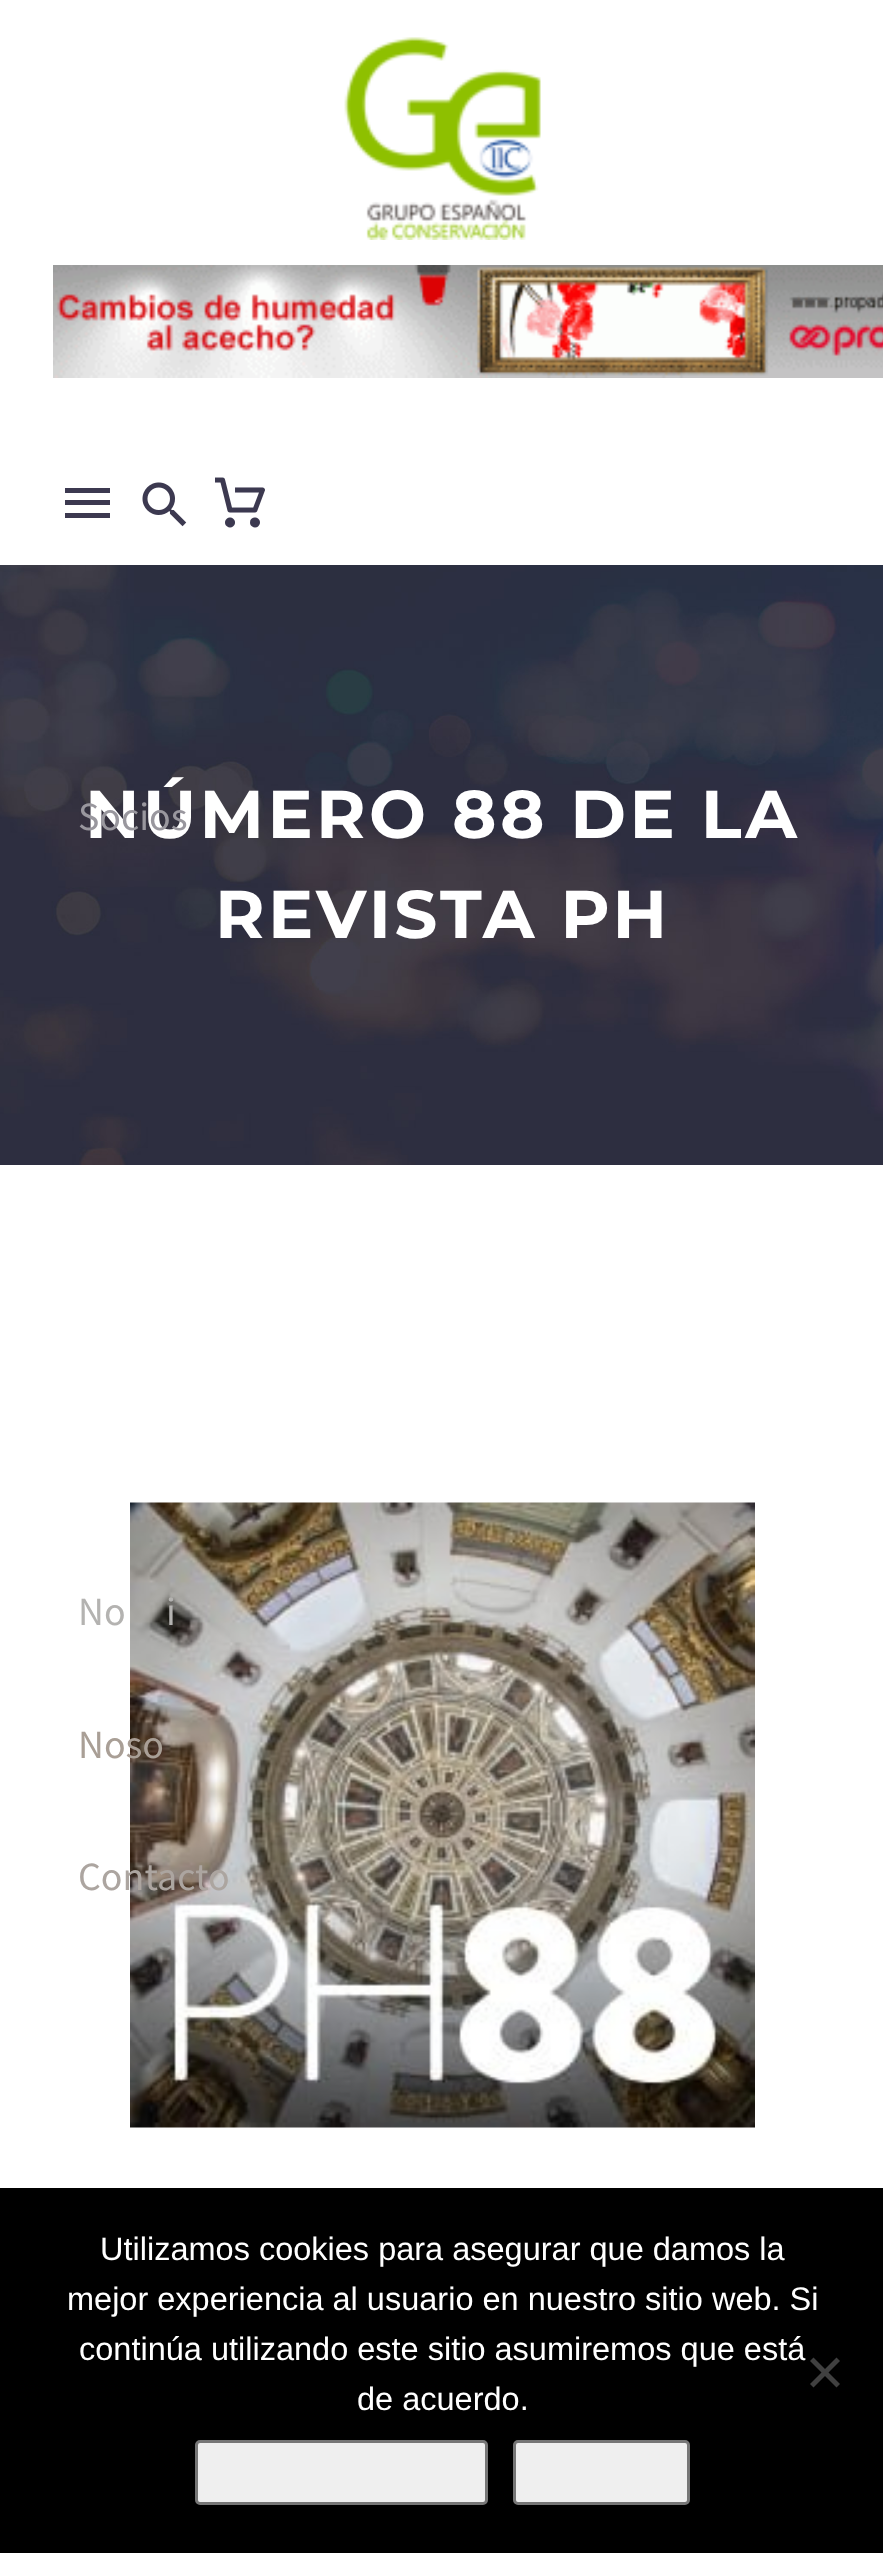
<!DOCTYPE html>
<meta charset="utf-8">
<style>body { margin: 0 } canvas { display: block }</style>
<canvas id="canvas" width="883" height="2553"></canvas>
<script type="module">
  const canvas = document.getElementById("canvas");
  const g = canvas.getContext("2d");
  g.miterLimit = 4;
  g.fontKerning = "normal";
  function drawText(s, x, y, [font, color]) {
    g.font = font;
    g.fillStyle = color;
    g.fillText(s, x, y);
  }
  function fillBox(x, y, w, h, color) {
    g.fillStyle = color;
    g.fillRect(x, y, w, h);
  }
  async function drawPicture(src, x, y, w, h) {
    const img = new Image();
    img.src = src;
    await img.decode();
    g.drawImage(img, x, y, w, h);
  }

  const s1 = ["bold 67.5px Montserrat", "#FFFFFF"];
  const s2 = ["40px Source Sans Pro", "#99979E"];
  const s3 = ["40px Source Sans Pro", "#B4B3B1"];
  const s4 = ["40px Source Sans Pro", "#A99F96"];
  const s5 = ["40px Source Sans Pro", "#ACA5A0"];
  const s6 = ["32.5px Liberation Sans", "#FFFFFF"];

  fillBox(0, 0, 883, 2553, "#FFFFFF");
  await drawPicture("pic1.png", 0, 565, 883, 600);
  g.letterSpacing = "3.4px";
  drawText("NÚMERO 88 DE LA", 85, 838, s1);
  drawText("REVISTA PH", 215, 938, s1);
  await drawPicture("pic2.png", 130, 1502, 625, 626);
  await drawPicture("pic3.png", 344, 37, 197, 203);
  await drawPicture("pic4.png", 53, 265, 830, 113);
  await drawPicture("pic5.png", 142, 482, 45, 45);
  await drawPicture("pic6.png", 215, 477, 50, 51);
  fillBox(65, 488, 45, 5, "#3C3950");
  fillBox(65, 500, 45, 5, "#3C3950");
  fillBox(65, 513, 45, 5, "#3C3950");
  g.letterSpacing = "0px";
  drawText("Socios", 78, 830, s2);
  drawText("No", 78, 1625, s3);
  drawText("i", 166, 1625, s3);
  drawText("Noso", 78, 1758, s4);
  drawText("Contacto", 78, 1890, s5);
  fillBox(0, 2188, 883, 365, "#000000");
  drawText("Utilizamos cookies para asegurar que damos la", 100, 2260, s6);
  drawText("mejor experiencia al usuario en nuestro sitio web. Si", 67, 2310, s6);
  drawText("continúa utilizando este sitio asumiremos que está", 79, 2360, s6);
  drawText("de acuerdo.", 357, 2410, s6);
  g.fillStyle = "#404040";
  g.beginPath();
  g.moveTo(836.5, 2357.5);
  g.lineTo(840, 2361);
  g.lineTo(813.5, 2387.5);
  g.lineTo(810, 2384);
  g.closePath();
  g.fill();
  g.beginPath();
  g.moveTo(810, 2361);
  g.lineTo(813.5, 2357.5);
  g.lineTo(840, 2384);
  g.lineTo(836.5, 2387.5);
  g.closePath();
  g.fill();
  g.fillStyle = "#EFEFEF";
  g.beginPath();
  g.roundRect(196.5, 2441.5, 290, 62, 3.5);
  g.fill();
  g.strokeStyle = "#767676";
  g.lineWidth = 3;
  g.stroke();
  g.beginPath();
  g.roundRect(514.5, 2441.5, 174, 62, 3.5);
  g.fill();
  g.stroke();
</script>
